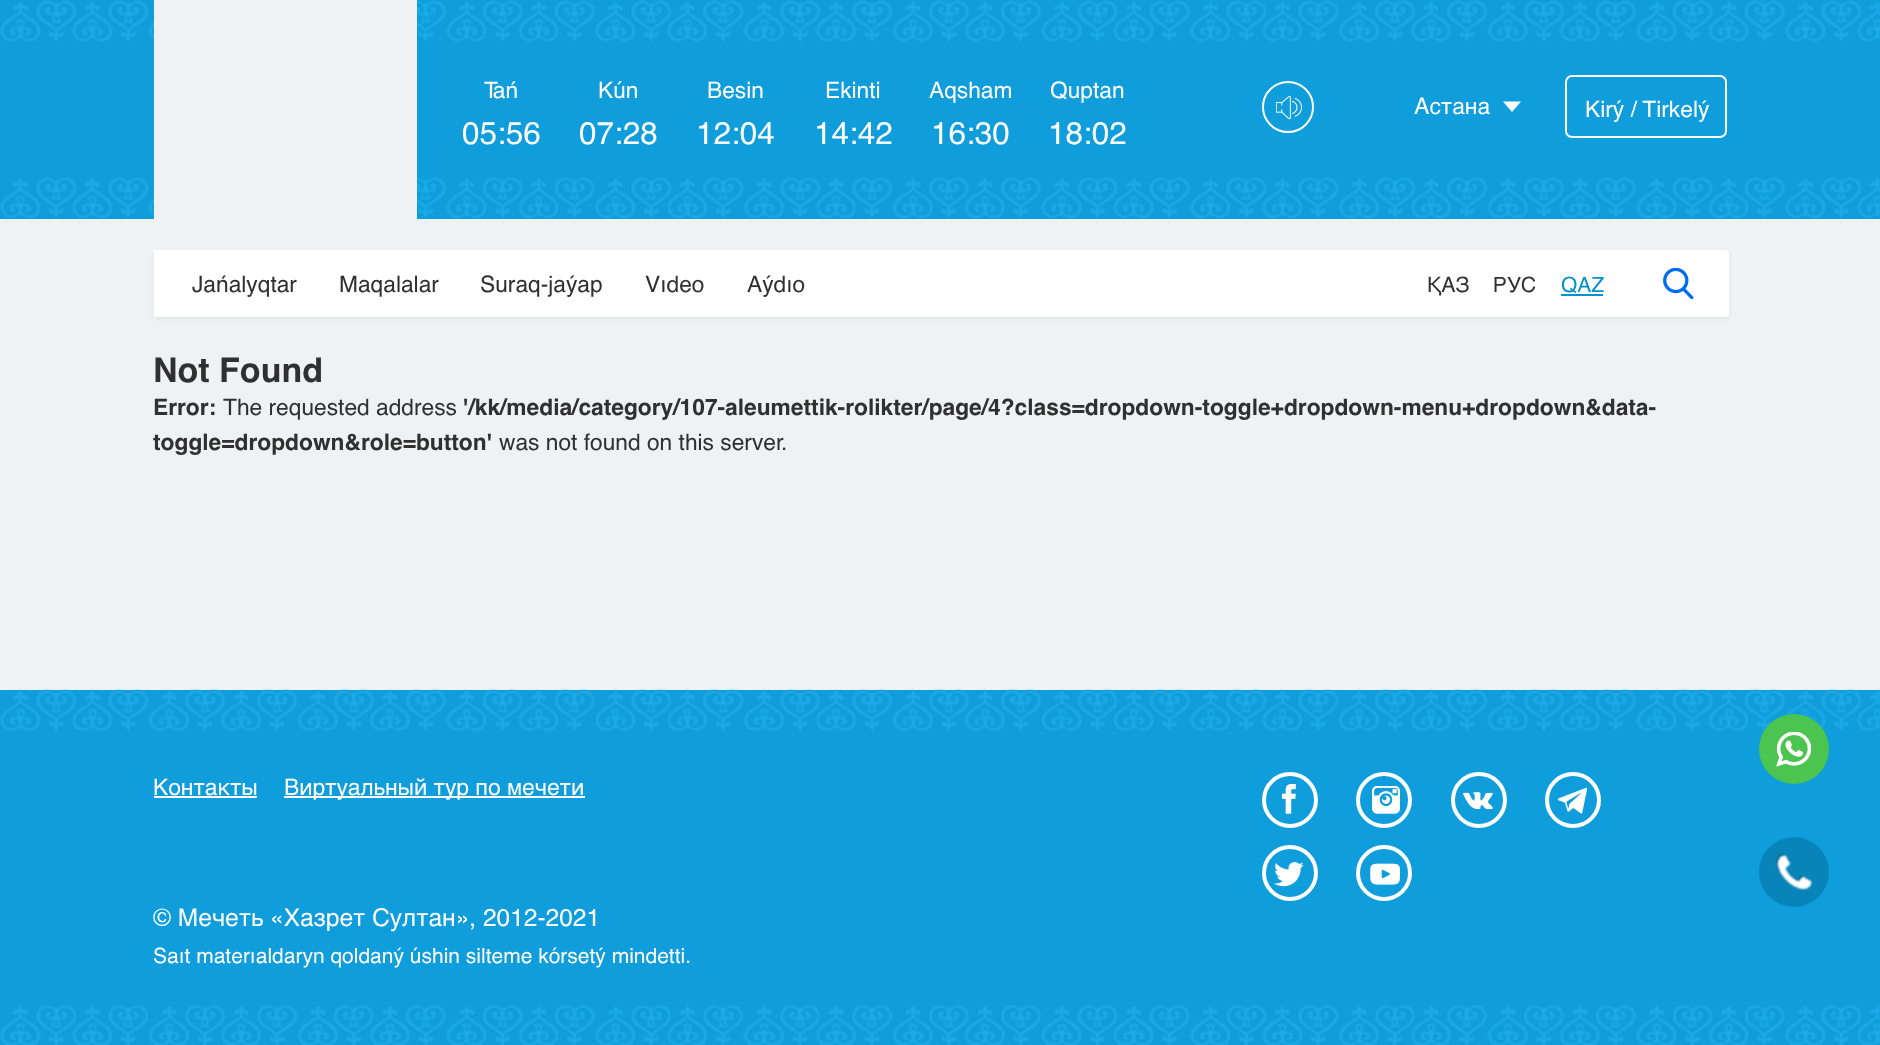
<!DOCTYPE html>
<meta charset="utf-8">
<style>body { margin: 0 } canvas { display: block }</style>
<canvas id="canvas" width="1880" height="1045"></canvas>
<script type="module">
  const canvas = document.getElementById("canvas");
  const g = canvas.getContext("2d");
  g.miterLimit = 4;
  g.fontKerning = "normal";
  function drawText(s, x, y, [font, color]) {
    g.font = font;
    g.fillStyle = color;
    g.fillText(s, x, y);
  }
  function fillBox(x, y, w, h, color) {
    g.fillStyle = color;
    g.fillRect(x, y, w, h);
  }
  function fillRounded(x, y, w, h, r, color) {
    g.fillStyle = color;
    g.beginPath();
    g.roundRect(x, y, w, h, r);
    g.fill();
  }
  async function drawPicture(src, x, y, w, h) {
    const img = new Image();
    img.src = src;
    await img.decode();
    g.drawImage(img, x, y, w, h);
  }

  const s1 = ["22.75px Helvetica", "#FFFFFF"];
  const s2 = ["31.5px Helvetica", "#FFFFFF"];
  const s3 = ["22.75px Helvetica", "#303030"];
  const s4 = ["21px Helvetica", "#303030"];
  const s5 = ["21px Helvetica", "#0991CD"];
  const s6 = ["bold 34px Helvetica", "#303030"];
  const s7 = ["bold 22.75px Helvetica", "#303030"];
  const s8 = ["24.5px Helvetica", "#FFFFFF"];
  const s9 = ["21px Helvetica", "#FFFFFF"];

  fillBox(0, 0, 1880, 1045, "#F0F1F3");
  fillBox(0, 0, 1880, 219, "#0F9DDB");
  await drawPicture("pic1.png", 0, 0, 1880, 42);
  await drawPicture("pic3.png", 0, 177, 1880, 42);
  fillBox(154, 0, 263, 219, "#F0F1F3");
  drawText("Tań", 484, 98, s1);
  drawText("05:56", 462, 144, s2);
  drawText("Kún", 598, 98, s1);
  drawText("07:28", 579, 144, s2);
  drawText("Besіn", 707, 98, s1);
  drawText("12:04", 696, 144, s2);
  drawText("Ekіntі", 825, 98, s1);
  drawText("14:42", 814, 144, s2);
  drawText("Aqsham", 929, 98, s1);
  drawText("16:30", 931, 144, s2);
  drawText("Quptan", 1050, 98, s1);
  drawText("18:02", 1048, 144, s2);
  g.beginPath();
  g.arc(1288, 107, 25, 0, Math.PI * 2);
  g.strokeStyle = "#FFFFFF";
  g.lineWidth = 2;
  g.stroke();
  await drawPicture("pic2.png", 1276, 96, 26, 24);
  drawText("Астана", 1414, 114, s1);
  g.beginPath();
  g.moveTo(1503, 101.5);
  g.lineTo(1521, 101.5);
  g.lineTo(1512, 112);
  g.closePath();
  g.fill();
  g.beginPath();
  g.roundRect(1566, 76, 160, 61, 6);
  g.stroke();
  drawText("Kіrý / Tіrkelý", 1585, 117, s1);
  g.fillStyle = "rgba(0, 0, 0, 0.06)";
  g.filter = "blur(2px)";
  g.beginPath();
  g.roundRect(154, 252, 1575, 67, 4);
  g.fill();
  g.filter = "none";
  fillRounded(154, 250, 1575, 67, 4, "#FFFFFF");
  fillBox(154, 250, 3, 67, "#FFFFFF");
  drawText("Jańalyqtar", 192, 292, s3);
  drawText("Maqalalar", 339, 292, s3);
  drawText("Suraq-jaýap", 480, 292, s3);
  drawText("Vıdeo", 645, 292, s3);
  drawText("Aýdıo", 747, 292, s3);
  drawText("ҚАЗ", 1427, 292, s4);
  drawText("РУС", 1493, 292, s4);
  drawText("QAZ", 1561, 292, s5);
  fillBox(1561, 294, 42, 2, "#0991CD");
  await drawPicture("pic4.png", 1663, 268, 31, 31);
  drawText("Not Found", 153, 382, s6);
  drawText("Error:", 153, 415, s7);
  drawText("The requested address", 223, 415, s3);
  drawText("'/kk/media/category/107-aleumettik-rolikter/page/4?class=dropdown-toggle+dropdown-menu+dropdown&data-", 463, 415, s7);
  drawText("toggle=dropdown&role=button'", 153, 450, s7);
  drawText("was not found on this server.", 499, 450, s3);
  fillBox(0, 690, 1880, 355, "#0F9DDB");
  await drawPicture("pic5.png", 0, 689, 1880, 42);
  drawText("Контакты", 153, 795, s1);
  fillBox(154, 796, 103, 2, "#FFFFFF");
  fillBox(284, 796, 301, 2, "#FFFFFF");
  drawText("Виртуальный тур по мечети", 284, 795, s1);
  drawText("© Мечеть «Хазрет Султан», 2012-2021", 153, 926, s8);
  drawText("Saıt materıaldaryn qoldaný úshіn sіlteme kórsetý mіndettі.", 153, 963, s9);
  g.beginPath();
  g.arc(1290, 800, 26, 0, Math.PI * 2);
  g.lineWidth = 4;
  g.stroke();
  await drawPicture("pic6.png", 1281, 784, 15, 30);
  g.beginPath();
  g.arc(1384, 800, 26, 0, Math.PI * 2);
  g.stroke();
  await drawPicture("pic7.png", 1372, 786, 28, 28);
  g.beginPath();
  g.arc(1479, 800, 26, 0, Math.PI * 2);
  g.stroke();
  await drawPicture("pic8.png", 1463, 792, 30, 18);
  g.beginPath();
  g.arc(1573, 800, 26, 0, Math.PI * 2);
  g.stroke();
  await drawPicture("pic9.png", 1558, 787, 29, 27);
  g.beginPath();
  g.arc(1290, 873, 26, 0, Math.PI * 2);
  g.stroke();
  await drawPicture("pic10.png", 1274, 862, 30, 25);
  g.beginPath();
  g.arc(1384, 873, 26, 0, Math.PI * 2);
  g.stroke();
  await drawPicture("pic11.png", 1370, 863, 30, 22);
  await drawPicture("pic12.png", 0, 1005, 1880, 40);
  g.fillStyle = "#4BC450";
  g.beginPath();
  g.arc(1794, 749, 35, 0, Math.PI * 2);
  g.fill();
  await drawPicture("pic13.png", 1776, 732, 35, 35);
  g.fillStyle = "#0884BB";
  g.beginPath();
  g.arc(1794, 872, 35, 0, Math.PI * 2);
  g.fill();
  await drawPicture("pic14.png", 1775, 853, 38, 37);
</script>
